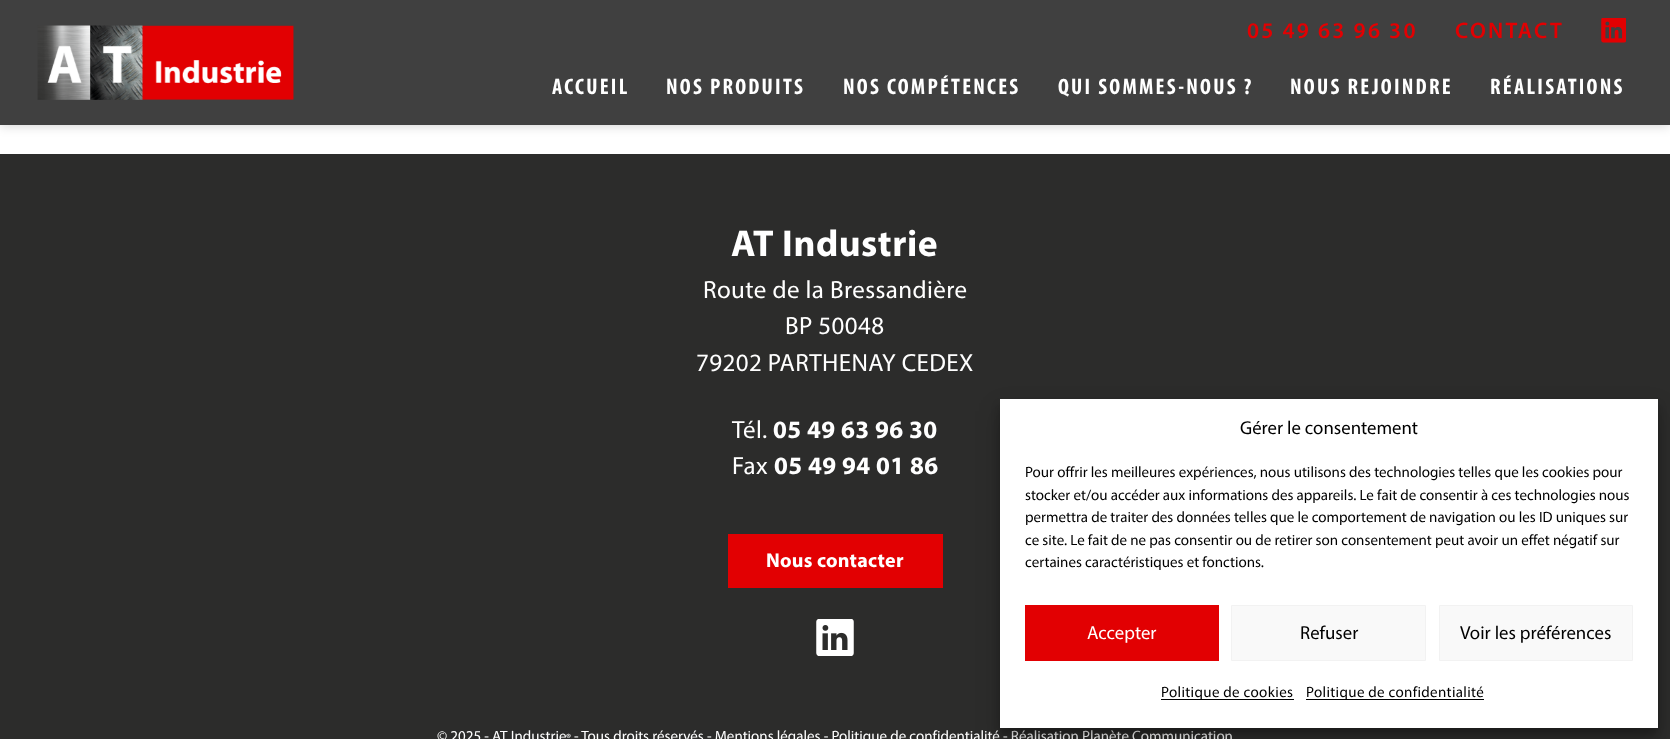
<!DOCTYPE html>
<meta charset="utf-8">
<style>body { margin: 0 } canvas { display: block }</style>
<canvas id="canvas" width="1670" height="739"></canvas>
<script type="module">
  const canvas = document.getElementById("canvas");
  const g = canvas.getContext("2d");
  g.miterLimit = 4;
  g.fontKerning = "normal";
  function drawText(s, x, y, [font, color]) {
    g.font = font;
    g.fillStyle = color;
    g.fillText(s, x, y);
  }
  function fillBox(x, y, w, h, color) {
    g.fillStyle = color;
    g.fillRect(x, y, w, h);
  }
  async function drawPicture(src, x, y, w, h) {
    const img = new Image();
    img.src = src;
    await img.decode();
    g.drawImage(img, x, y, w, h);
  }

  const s1 = ["600 22.5px Myriad", "#E20002"];
  const s2 = ["bold 22.5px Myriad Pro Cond", "#FFFFFF"];
  const s3 = ["bold 37.5px Myriad", "#FFFFFF"];
  const s4 = ["25px Myriad", "#FFFFFF"];
  const s5 = ["bold 25px Myriad", "#FFFFFF"];
  const s6 = ["bold 20px Myriad", "#FFFFFF"];
  const s7 = ["15px Myriad", "#FFFFFF"];
  const s8 = ["12px Myriad", "#FFFFFF"];
  const s9 = ["18.75px Myriad", "#000000"];
  const s10 = ["15px Myriad", "#000000"];
  const s11 = ["18.75px Myriad", "#FFFFFF"];

  fillBox(0, 0, 1670, 739, "#FFFFFF");
  g.fillStyle = "rgba(0, 0, 0, 0.2)";
  g.filter = "blur(6px)";
  g.beginPath();
  g.rect(0, 0, 1670, 125);
  g.fill();
  g.filter = "none";
  fillBox(0, 0, 1670, 125, "#404040");
  await drawPicture("pic1.png", 37, 25, 257, 75);
  g.letterSpacing = "2.25px";
  drawText("05 49 63 96 30", 1247, 38, s1);
  drawText("CONTACT", 1455, 38, s1);
  await drawPicture("pic2.png", 1601, 18, 25, 25);
  drawText("ACCUEIL", 552, 94, s2);
  drawText("NOS PRODUITS", 666, 94, s2);
  drawText("NOS COMPÉTENCES", 843, 94, s2);
  drawText("QUI SOMMES-NOUS ?", 1058, 94, s2);
  drawText("NOUS REJOINDRE", 1290, 94, s2);
  drawText("RÉALISATIONS", 1490, 94, s2);
  fillBox(0, 154, 1670, 585, "#2C2C2B");
  g.letterSpacing = "0.5px";
  drawText("AT Industrie", 731, 256, s3);
  g.letterSpacing = "0.4px";
  drawText("Route de la Bressandière", 703, 298, s4);
  drawText("BP 50048", 785, 334, s4);
  drawText("79202 PARTHENAY CEDEX", 696, 371, s4);
  drawText("Tél.", 732, 438, s4);
  drawText("05 49 63 96 30", 773, 438, s5);
  drawText("Fax", 732, 474, s4);
  drawText("05 49 94 01 86", 774, 474, s5);
  fillBox(728, 534, 215, 54, "#E20002");
  g.letterSpacing = "0.25px";
  drawText("Nous contacter", 766, 567, s6);
  await drawPicture("pic3.png", 816, 619, 38, 37);
  g.letterSpacing = "0px";
  drawText("© 2025 - AT Industrie", 437, 741, s7);
  drawText("®", 566, 742, s8);
  drawText("- Tous droits réservés - Mentions légales - Politique de confidentialité - Réalisation Planète Communication", 574, 741, s7);
  g.fillStyle = "rgba(0, 0, 0, 0.23)";
  g.filter = "blur(4px)";
  g.beginPath();
  g.rect(1000, 406, 658, 329);
  g.fill();
  g.filter = "none";
  g.fillStyle = "rgba(0, 0, 0, 0.19)";
  g.filter = "blur(12.5px)";
  g.beginPath();
  g.rect(1000, 411, 658, 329);
  g.fill();
  g.filter = "none";
  fillBox(1000, 399, 658, 329, "#FFFFFF");
  drawText("Gérer le consentement", 1240, 434, s9);
  drawText("Pour offrir les meilleures expériences, nous utilisons des technologies telles que les cookies pour", 1025, 477, s10);
  drawText("stocker et/ou accéder aux informations des appareils. Le fait de consentir à ces technologies nous", 1025, 500, s10);
  drawText("permettra de traiter des données telles que le comportement de navigation ou les ID uniques sur", 1025, 522, s10);
  drawText("ce site. Le fait de ne pas consentir ou de retirer son consentement peut avoir un effet négatif sur", 1025, 545, s10);
  drawText("certaines caractéristiques et fonctions.", 1025, 567, s10);
  fillBox(1025, 605, 194, 56, "#E20002");
  drawText("Accepter", 1087, 639, s11);
  g.fillStyle = "#F9F9F9";
  g.beginPath();
  g.rect(1231.5, 605.5, 194, 55);
  g.fill();
  g.strokeStyle = "#F2F2F2";
  g.stroke();
  drawText("Refuser", 1300, 639, s9);
  g.fillStyle = "#F9F9F9";
  g.beginPath();
  g.rect(1439.5, 605.5, 193, 55);
  g.fill();
  g.stroke();
  drawText("Voir les préférences", 1460, 639, s9);
  fillBox(1161, 699, 133, 1, "#000000");
  g.letterSpacing = "0.35px";
  drawText("Politique de cookies", 1161, 697, s10);
  fillBox(1306, 699, 178, 1, "#000000");
  drawText("Politique de confidentialité", 1306, 697, s10);
</script>
